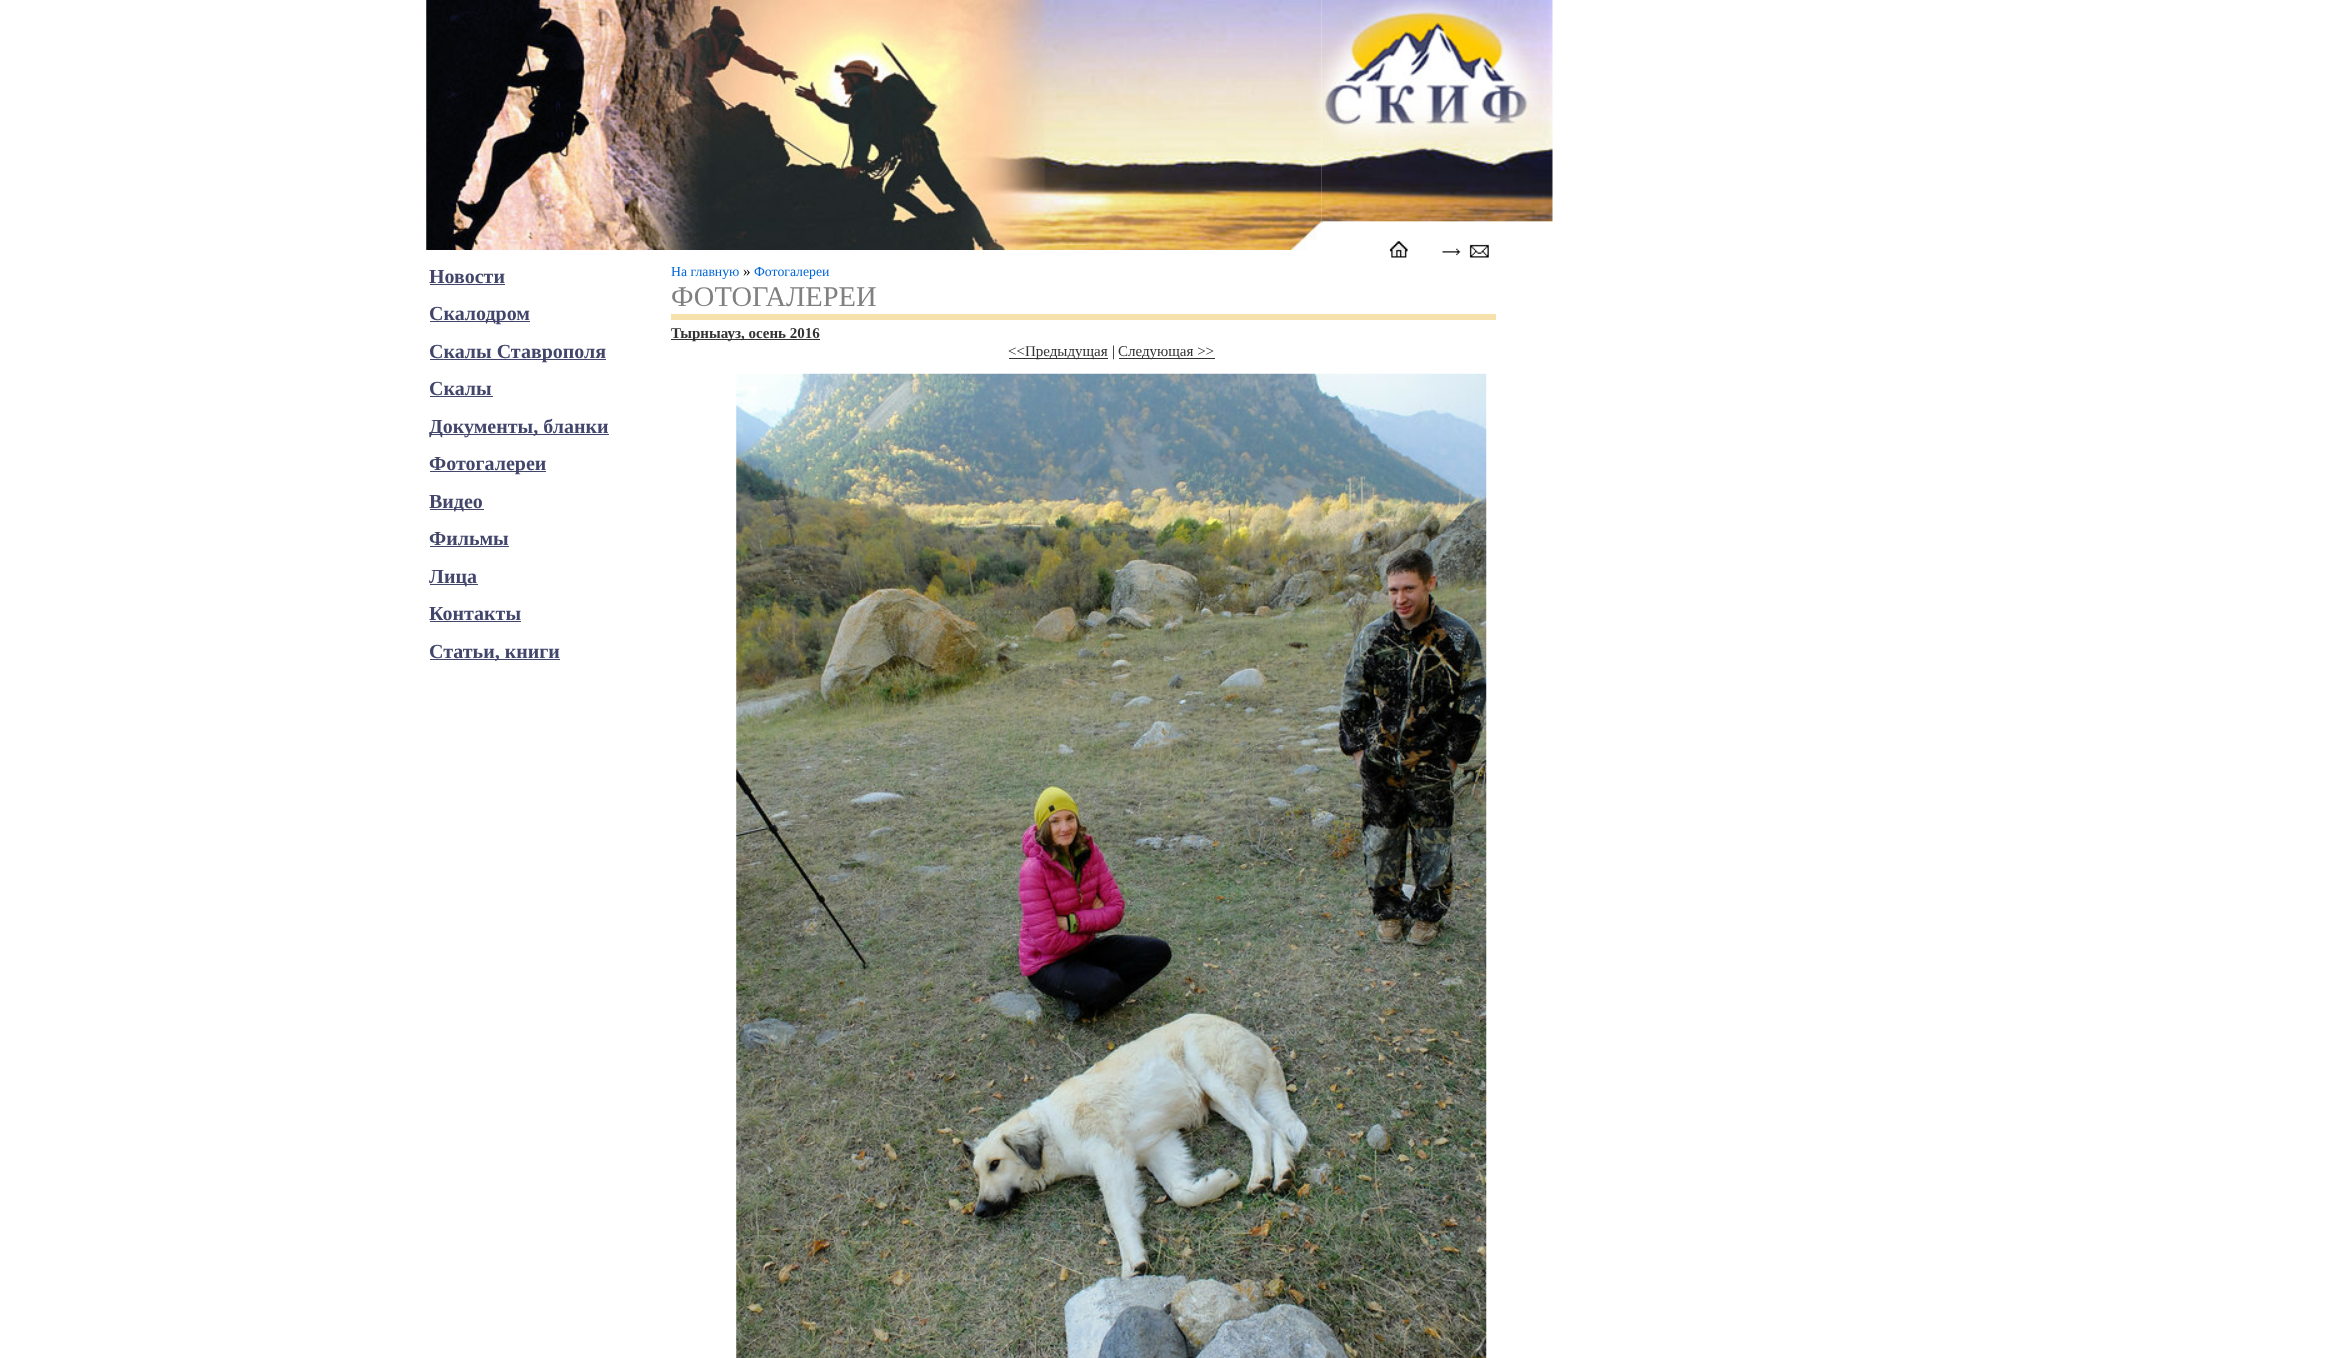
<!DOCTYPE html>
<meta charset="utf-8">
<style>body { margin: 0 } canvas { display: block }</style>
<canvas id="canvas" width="2351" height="1358"></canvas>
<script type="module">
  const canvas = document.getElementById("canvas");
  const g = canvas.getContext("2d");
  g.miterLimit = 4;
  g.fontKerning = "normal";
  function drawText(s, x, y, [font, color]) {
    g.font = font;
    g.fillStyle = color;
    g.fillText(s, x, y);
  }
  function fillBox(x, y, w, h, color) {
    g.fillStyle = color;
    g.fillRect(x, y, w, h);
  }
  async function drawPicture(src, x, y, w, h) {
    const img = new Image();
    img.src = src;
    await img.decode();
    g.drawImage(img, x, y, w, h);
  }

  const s1 = ["bold 20px Liberation Serif", "#42466B"];
  const s2 = ["13.75px Liberation Serif", "#0065D6"];
  const s3 = ["15px Liberation Serif", "#000000"];
  const s4 = ["28.5px Liberation Serif", "#808080"];
  const s5 = ["bold 15px Liberation Serif", "#333333"];
  const s6 = ["15px Liberation Serif", "#333333"];

  fillBox(0, 0, 2351, 1358, "#FFFFFF");
  await drawPicture("pic1.png", 426, 0, 896, 250);
  await drawPicture("pic2.png", 1321, 0, 232, 223);
  await drawPicture("pic3.png", 1389, 241, 19, 17);
  await drawPicture("pic4.png", 1442, 244, 47, 14);
  drawText("Новости", 429, 283, s1);
  fillBox(430, 284, 75, 1, "#42466B");
  fillBox(430, 321, 100, 1, "#42466B");
  drawText("Скалодром", 429, 320, s1);
  fillBox(430, 359, 176, 1, "#42466B");
  drawText("Скалы Ставрополя", 429, 358, s1);
  drawText("Скалы", 429, 395, s1);
  fillBox(430, 396, 63, 1, "#42466B");
  fillBox(430, 434, 179, 1, "#42466B");
  drawText("Документы, бланки", 429, 433, s1);
  fillBox(430, 471, 116, 1, "#42466B");
  drawText("Фотогалереи", 429, 470, s1);
  fillBox(430, 509, 54, 1, "#42466B");
  drawText("Видео", 429, 508, s1);
  drawText("Фильмы", 429, 545, s1);
  fillBox(430, 546, 79, 1, "#42466B");
  fillBox(430, 584, 48, 1, "#42466B");
  drawText("Лица", 429, 583, s1);
  drawText("Контакты", 429, 620, s1);
  fillBox(430, 621, 91, 1, "#42466B");
  fillBox(430, 659, 130, 1, "#42466B");
  drawText("Статьи, книги", 429, 658, s1);
  drawText("На главную", 671, 276, s2);
  drawText("»", 743, 276, s3);
  drawText("Фотогалереи", 754, 276, s2);
  drawText("ФОТОГАЛЕРЕИ", 671, 306, s4);
  fillBox(671, 314, 825, 6, "#F7E2AD");
  fillBox(671, 339, 149, 1, "#333333");
  drawText("Тырныауз, осень 2016", 671, 338, s5);
  fillBox(1009, 358, 99, 1, "#333333");
  drawText("<<Предыдущая", 1008, 356, s6);
  drawText("|", 1112, 356, s3);
  fillBox(1119, 358, 96, 1, "#333333");
  drawText("Следующая >>", 1118, 356, s6);
  await drawPicture("pic5.png", 736, 373, 751, 985);
</script>
